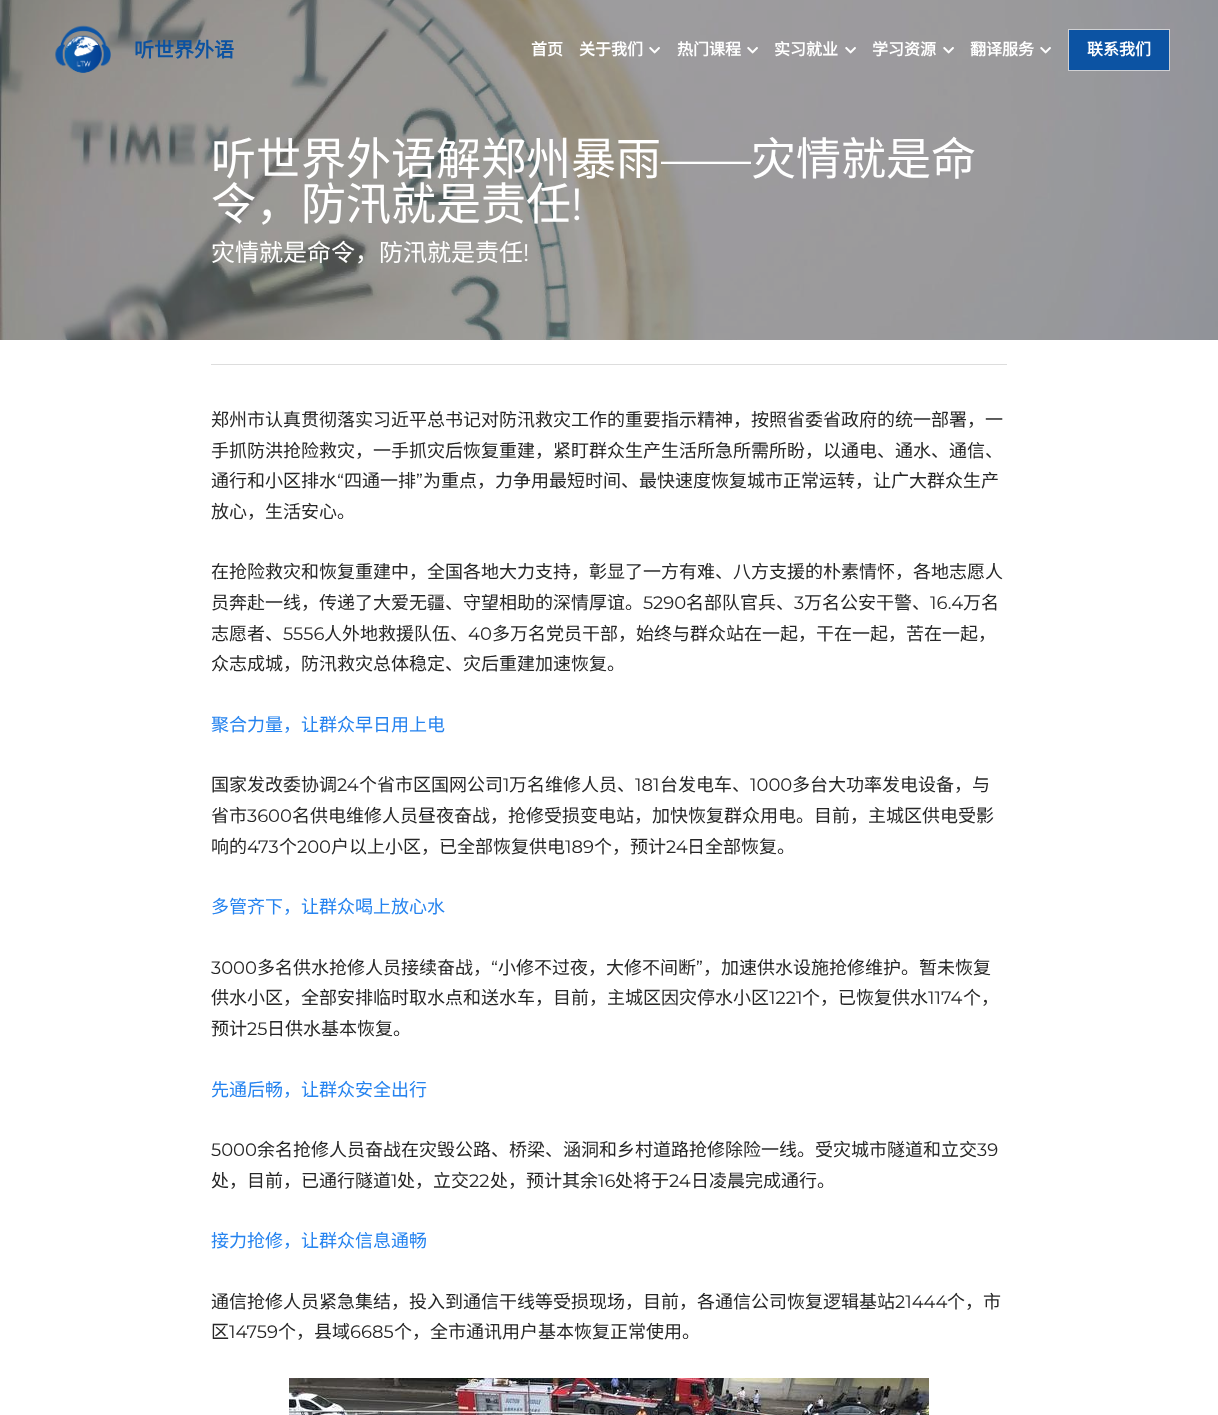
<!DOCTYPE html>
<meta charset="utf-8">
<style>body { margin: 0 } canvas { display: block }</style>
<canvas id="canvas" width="1218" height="1415"></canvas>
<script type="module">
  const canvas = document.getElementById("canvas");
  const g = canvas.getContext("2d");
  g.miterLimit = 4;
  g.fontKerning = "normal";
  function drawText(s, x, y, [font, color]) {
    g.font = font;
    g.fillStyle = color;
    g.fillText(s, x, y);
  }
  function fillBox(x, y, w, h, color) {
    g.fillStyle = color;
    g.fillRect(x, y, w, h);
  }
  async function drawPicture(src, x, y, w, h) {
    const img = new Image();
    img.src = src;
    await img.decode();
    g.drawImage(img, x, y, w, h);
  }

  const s1 = ["bold 20px Noto Sans CJK SC", "#0C52A1"];
  const s2 = ["bold 16px Noto Sans CJK SC", "#FFFFFF"];
  const s3 = ["45px Noto Sans CJK SC", "#FFFFFF"];
  const s4 = ["45px Montserrat", "#FFFFFF"];
  const s5 = ["24px Noto Sans CJK SC", "#FFFFFF"];
  const s6 = ["24px Montserrat", "#FFFFFF"];
  const s7 = ["18px Noto Sans CJK SC", "#262626"];
  const s8 = ["18px Montserrat", "#262626"];
  const s9 = ["18px Noto Sans CJK SC", "#2583EF"];

  fillBox(0, 0, 1218, 1415, "#FFFFFF");
  await drawPicture("pic7.png", 0, 0, 1218, 340);
  await drawPicture("pic1.png", 55, 25, 56, 48);
  drawText("听世界外语", 134, 57, s1);
  drawText("首页", 531, 55, s2);
  drawText("关于我们", 579, 55, s2);
  await drawPicture("pic2.png", 649, 47, 11, 7);
  drawText("热门课程", 677, 55, s2);
  await drawPicture("pic3.png", 747, 47, 11, 7);
  drawText("实习就业", 774, 55, s2);
  await drawPicture("pic4.png", 845, 47, 11, 7);
  drawText("学习资源", 872, 55, s2);
  await drawPicture("pic5.png", 943, 47, 11, 7);
  drawText("翻译服务", 970, 55, s2);
  await drawPicture("pic6.png", 1040, 47, 11, 7);
  g.fillStyle = "rgba(255, 255, 255, 0.5)";
  g.filter = "blur(0.5px)";
  g.beginPath();
  g.rect(1068, 29, 102, 42);
  g.fill();
  g.filter = "none";
  fillBox(1069, 30, 100, 40, "#0C53A3");
  g.strokeStyle = "rgba(255, 255, 255, 0.1)";
  g.strokeRect(1068.5, 29.5, 101, 41);
  drawText("联系我们", 1087, 55, s2);
  drawText("听世界外语解郑州暴雨", 211, 175, s3);
  drawText("——", 661, 175, s4);
  drawText("灾情就是命", 751, 175, s3);
  drawText("令，防汛就是责任", 211, 220, s3);
  drawText("!", 571, 220, s4);
  drawText("灾情就是命令，防汛就是责任", 211, 261, s5);
  drawText("!", 523, 261, s6);
  fillBox(211, 364, 796, 1, "#DDDDDD");
  drawText("郑州市认真贯彻落实习近平总书记对防汛救灾工作的重要指示精神，按照省委省政府的统一部署，一", 211, 426, s7);
  drawText("手抓防洪抢险救灾，一手抓灾后恢复重建，紧盯群众生产生活所急所需所盼，以通电、通水、通信、", 211, 457, s7);
  drawText("通行和小区排水", 211, 487, s7);
  drawText("“", 337, 487, s8);
  drawText("四通一排", 344, 487, s7);
  drawText("”", 416, 487, s8);
  drawText("为重点，力争用最短时间、最快速度恢复城市正常运转，让广大群众生产", 423, 487, s7);
  drawText("放心，生活安心。", 211, 518, s7);
  drawText("在抢险救灾和恢复重建中，全国各地大力支持，彰显了一方有难、八方支援的朴素情怀，各地志愿人", 211, 578, s7);
  drawText("员奔赴一线，传递了大爱无疆、守望相助的深情厚谊。", 211, 609, s7);
  drawText("5290", 643, 609, s8);
  drawText("名部队官兵、", 686, 609, s7);
  drawText("3", 794, 609, s8);
  drawText("万名公安干警、", 804, 609, s7);
  drawText("16.4", 930, 609, s8);
  drawText("万名", 963, 609, s7);
  drawText("志愿者、", 211, 640, s7);
  drawText("5556", 283, 640, s8);
  drawText("人外地救援队伍、", 324, 640, s7);
  drawText("40", 468, 640, s8);
  drawText("多万名党员干部，始终与群众站在一起，干在一起，苦在一起，", 492, 640, s7);
  drawText("众志成城，防汛救灾总体稳定、灾后重建加速恢复。", 211, 670, s7);
  drawText("聚合力量，让群众早日用上电", 211, 731, s9);
  drawText("国家发改委协调", 211, 791, s7);
  drawText("24", 337, 791, s8);
  drawText("个省市区国网公司", 359, 791, s7);
  drawText("1", 503, 791, s8);
  drawText("万名维修人员、", 509, 791, s7);
  drawText("181", 635, 791, s8);
  drawText("台发电车、", 660, 791, s7);
  drawText("1000", 750, 791, s8);
  drawText("多台大功率发电设备，与", 792, 791, s7);
  drawText("省市", 211, 822, s7);
  drawText("3600", 247, 822, s8);
  drawText("名供电维修人员昼夜奋战，抢修受损变电站，加快恢复群众用电。目前，主城区供电受影", 292, 822, s7);
  drawText("响的", 211, 853, s7);
  drawText("473", 247, 853, s8);
  drawText("个", 279, 853, s7);
  drawText("200", 297, 853, s8);
  drawText("户以上小区，已全部恢复供电", 331, 853, s7);
  drawText("189", 565, 853, s8);
  drawText("个，预计", 594, 853, s7);
  drawText("24", 666, 853, s8);
  drawText("日全部恢复。", 687, 853, s7);
  drawText("多管齐下，让群众喝上放心水", 211, 913, s9);
  drawText("3000", 211, 974, s8);
  drawText("多名供水抢修人员接续奋战，", 257, 974, s7);
  drawText("“", 491, 974, s8);
  drawText("小修不过夜，大修不间断", 498, 974, s7);
  drawText("”", 696, 974, s8);
  drawText("，加速供水设施抢修维护。暂未恢复", 703, 974, s7);
  drawText("供水小区，全部安排临时取水点和送水车，目前，主城区因灾停水小区", 211, 1004, s7);
  drawText("1221", 769, 1004, s8);
  drawText("个，已恢复供水", 802, 1004, s7);
  drawText("1174", 928, 1004, s8);
  drawText("个，", 963, 1004, s7);
  drawText("预计", 211, 1035, s7);
  drawText("25", 247, 1035, s8);
  drawText("日供水基本恢复。", 267, 1035, s7);
  drawText("先通后畅，让群众安全出行", 211, 1096, s9);
  drawText("5000", 211, 1156, s8);
  drawText("余名抢修人员奋战在灾毁公路、桥梁、涵洞和乡村道路抢修除险一线。受灾城市隧道和立交", 257, 1156, s7);
  drawText("39", 977, 1156, s8);
  drawText("处，目前，已通行隧道", 211, 1187, s7);
  drawText("1", 391, 1187, s8);
  drawText("处，立交", 397, 1187, s7);
  drawText("22", 469, 1187, s8);
  drawText("处，预计其余", 490, 1187, s7);
  drawText("16", 598, 1187, s8);
  drawText("处将于", 615, 1187, s7);
  drawText("24", 669, 1187, s8);
  drawText("日凌晨完成通行。", 691, 1187, s7);
  drawText("接力抢修，让群众信息通畅", 211, 1247, s9);
  drawText("通信抢修人员紧急集结，投入到通信干线等受损现场，目前，各通信公司恢复逻辑基站", 211, 1308, s7);
  drawText("21444", 895, 1308, s8);
  drawText("个，市", 947, 1308, s7);
  drawText("区", 211, 1338, s7);
  drawText("14759", 229, 1338, s8);
  drawText("个，县域", 278, 1338, s7);
  drawText("6685", 350, 1338, s8);
  drawText("个，全市通讯用户基本恢复正常使用。", 394, 1338, s7);
  await drawPicture("pic8.png", 289, 1378, 640, 37);
</script>
